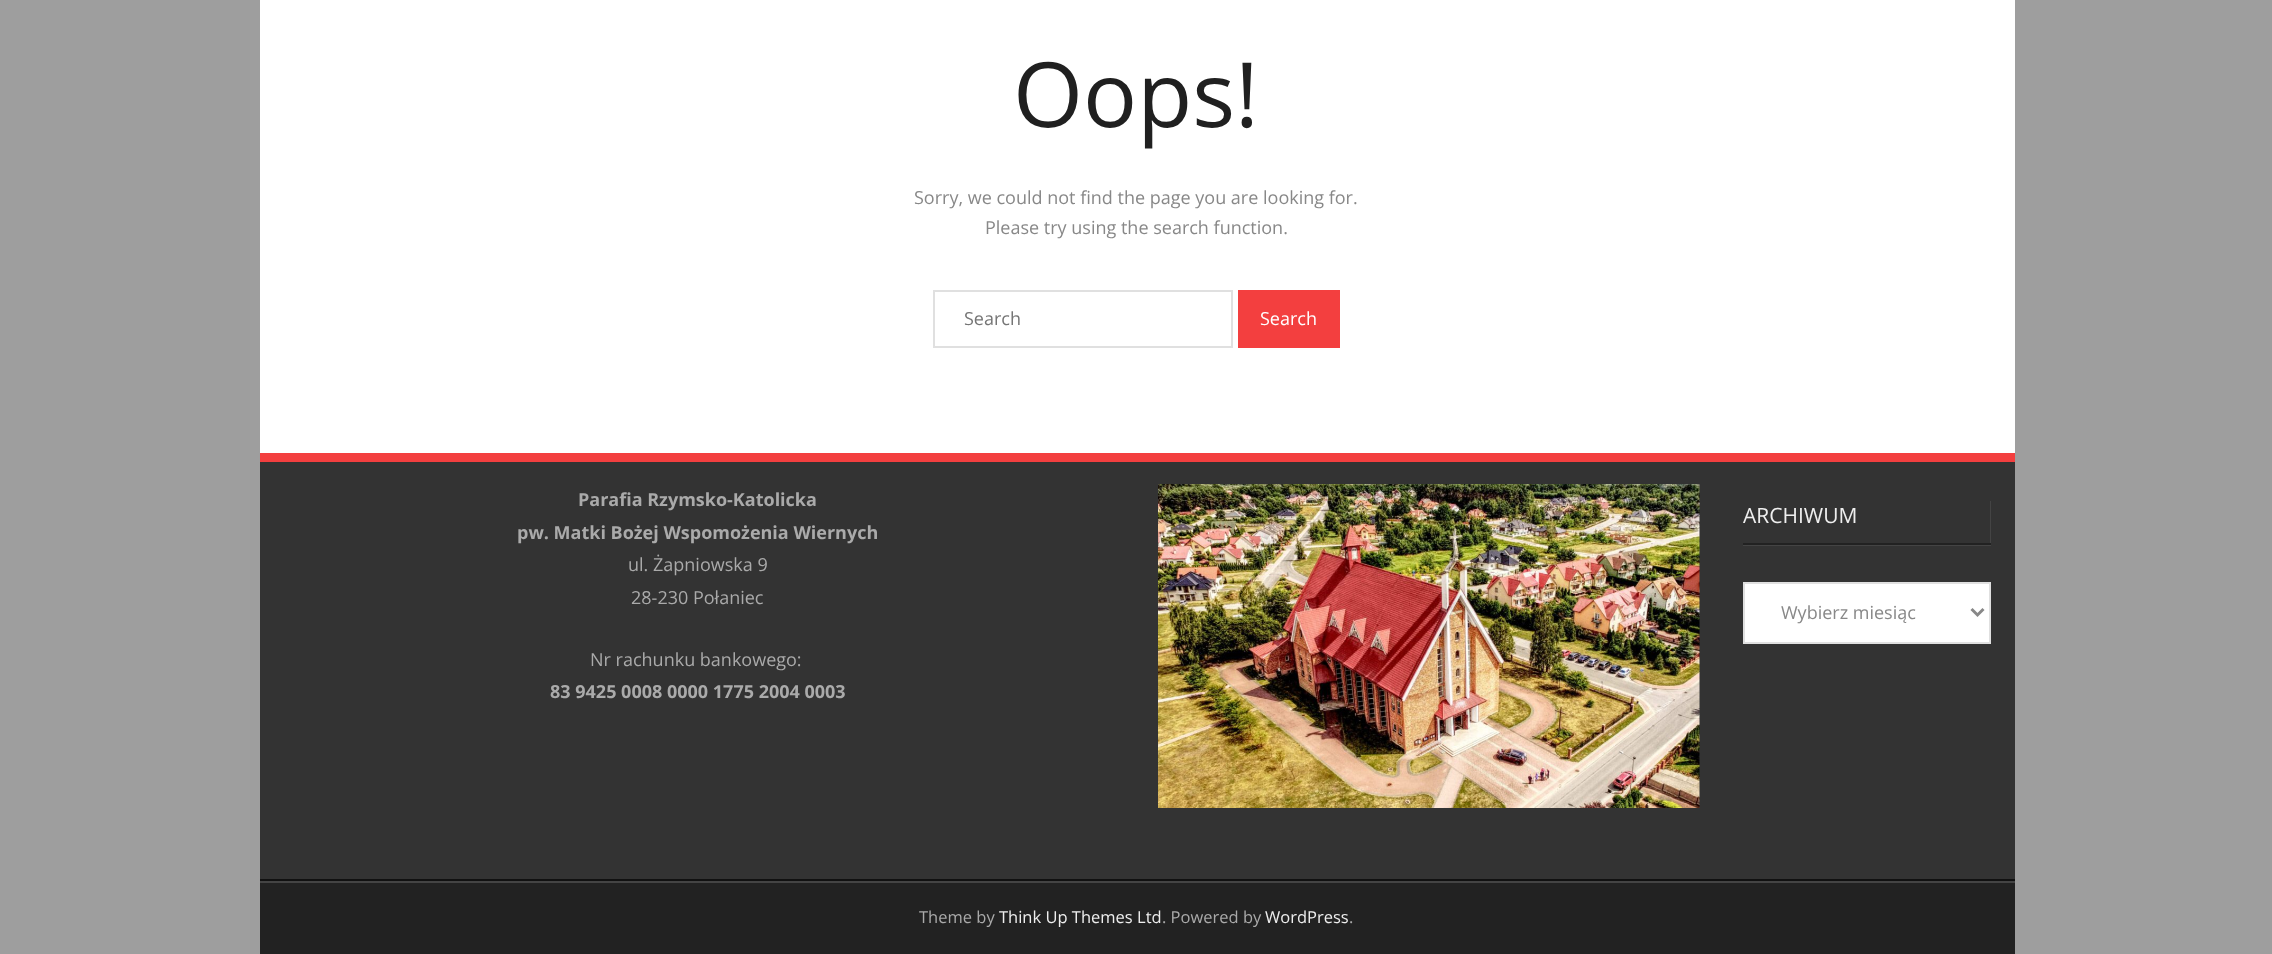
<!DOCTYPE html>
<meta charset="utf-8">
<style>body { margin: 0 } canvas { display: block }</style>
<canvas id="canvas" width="2272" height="954"></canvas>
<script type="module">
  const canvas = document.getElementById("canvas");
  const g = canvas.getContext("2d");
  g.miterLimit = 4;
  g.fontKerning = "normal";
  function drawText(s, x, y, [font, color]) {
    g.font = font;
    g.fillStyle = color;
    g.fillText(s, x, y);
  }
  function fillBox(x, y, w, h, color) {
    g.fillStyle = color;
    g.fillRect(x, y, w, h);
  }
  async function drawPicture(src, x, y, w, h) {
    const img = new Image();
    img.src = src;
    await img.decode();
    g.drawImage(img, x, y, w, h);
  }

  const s1 = ["90px Open Sans", "#202020"];
  const s2 = ["18px Open Sans", "#888888"];
  const s3 = ["18px Open Sans", "#757575"];
  const s4 = ["18px Open Sans", "#FFFFFF"];
  const s5 = ["bold 18px Open Sans", "#AAAAAA"];
  const s6 = ["18px Open Sans", "#AAAAAA"];
  const s7 = ["21px Open Sans", "#EEEEEE"];
  const s8 = ["16.5px Open Sans", "#AAAAAA"];
  const s9 = ["16.5px Open Sans", "#EEEEEE"];

  fillBox(0, 0, 2272, 954, "#9E9E9E");
  fillBox(260, 0, 1755, 453, "#FFFFFF");
  drawText("Oops!", 1013, 127, s1);
  drawText("Sorry, we could not find the page you are looking for.", 914, 204, s2);
  drawText("Please try using the search function.", 985, 234, s2);
  g.strokeStyle = "#E0E0E0";
  g.lineWidth = 2;
  g.strokeRect(934, 291, 298, 56);
  drawText("Search", 964, 325, s3);
  fillBox(1238, 290, 102, 58, "#F33F3F");
  drawText("Search", 1260, 325, s4);
  fillBox(260, 462, 1755, 417, "#333333");
  fillBox(260, 453, 1755, 9, "#F33F3F");
  fillBox(260, 879, 1755, 2, "#111111");
  drawText("Parafia Rzymsko-Katolicka", 578, 506, s5);
  drawText("pw. Matki Bożej Wspomożenia Wiernych", 517, 539, s5);
  drawText("ul. Żapniowska 9", 628, 571, s6);
  drawText("28-230 Połaniec", 631, 604, s6);
  drawText("Nr rachunku bankowego:", 590, 666, s6);
  drawText("83 9425 0008 0000 1775 2004 0003", 550, 698, s5);
  await drawPicture("pic1.png", 1158, 484, 542, 324);
  g.fillStyle = "#444444";
  g.beginPath();
  g.moveTo(1743, 544);
  g.lineTo(1743, 546);
  g.lineTo(1991, 546);
  g.lineTo(1991, 501);
  g.lineTo(1990, 501);
  g.lineTo(1990, 544);
  g.closePath();
  g.fill();
  fillBox(1743, 543, 248, 2, "#222222");
  drawText("ARCHIWUM", 1743, 523, s7);
  g.fillStyle = "#FFFFFF";
  g.beginPath();
  g.rect(1744, 583, 246, 60);
  g.fill();
  g.stroke();
  g.beginPath();
  g.moveTo(1971.5, 609);
  g.lineTo(1977.5, 615);
  g.lineTo(1983.5, 609);
  g.strokeStyle = "#888888";
  g.lineWidth = 3;
  g.stroke();
  drawText("Wybierz miesiąc", 1781, 619, s2);
  fillBox(260, 883, 1755, 71, "#222222");
  fillBox(260, 881, 1755, 2, "#444444");
  drawText("Theme by", 919, 923, s8);
  drawText("Think Up Themes Ltd", 999, 923, s9);
  drawText(". Powered by", 1162, 923, s8);
  drawText("WordPress", 1265, 923, s9);
  drawText(".", 1349, 923, s8);
</script>
